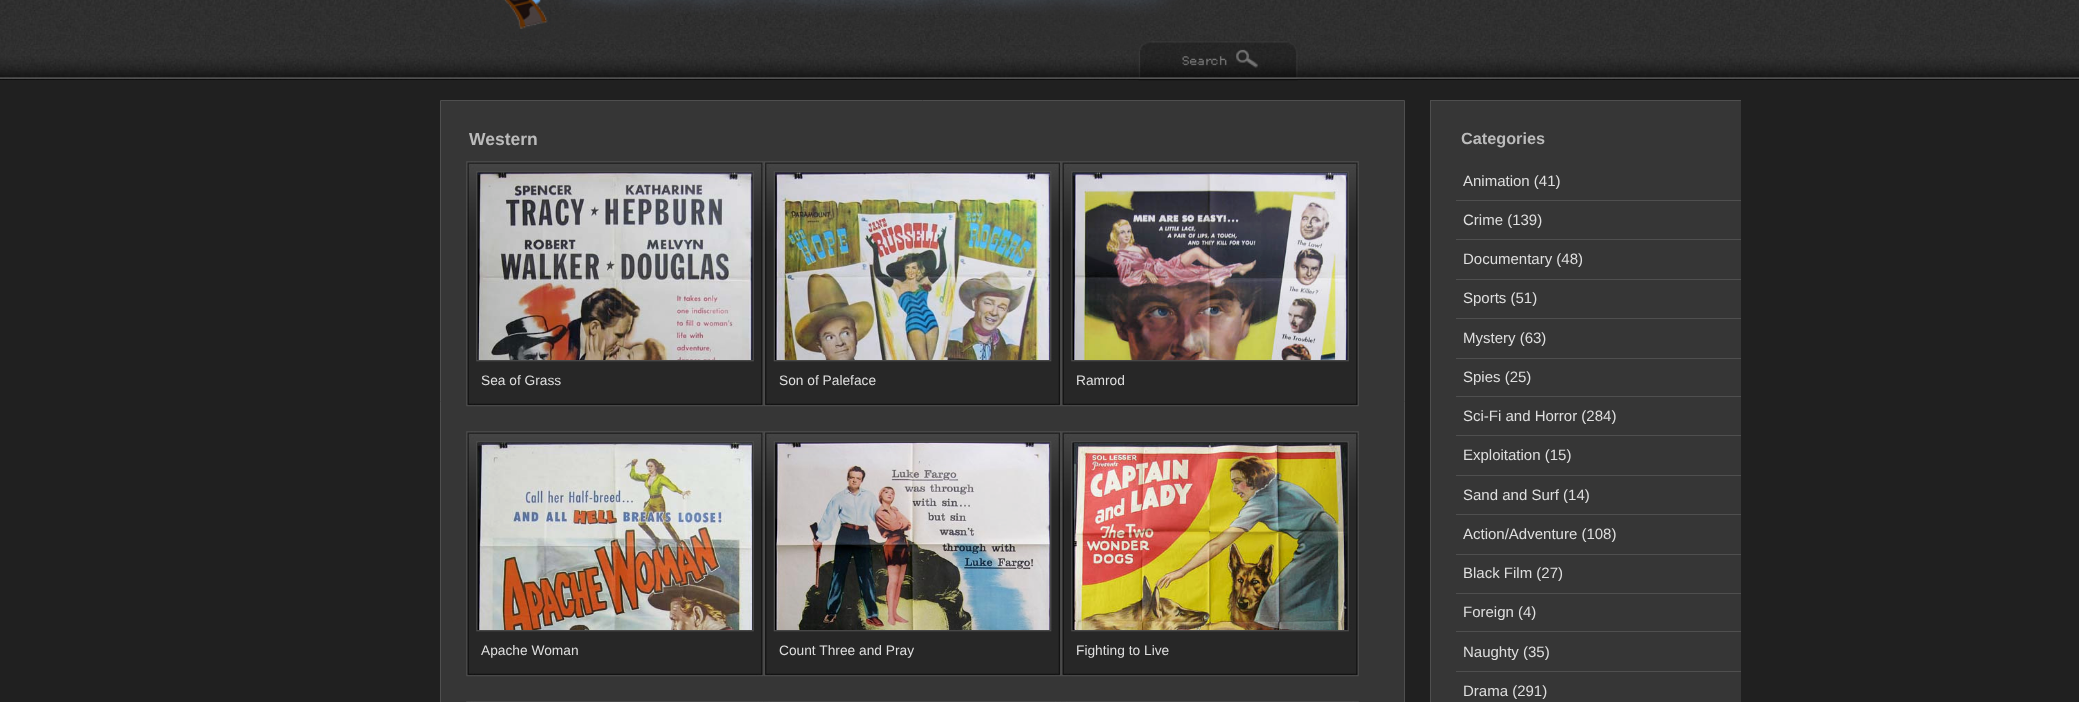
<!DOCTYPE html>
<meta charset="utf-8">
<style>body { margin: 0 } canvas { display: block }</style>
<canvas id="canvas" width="2079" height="702"></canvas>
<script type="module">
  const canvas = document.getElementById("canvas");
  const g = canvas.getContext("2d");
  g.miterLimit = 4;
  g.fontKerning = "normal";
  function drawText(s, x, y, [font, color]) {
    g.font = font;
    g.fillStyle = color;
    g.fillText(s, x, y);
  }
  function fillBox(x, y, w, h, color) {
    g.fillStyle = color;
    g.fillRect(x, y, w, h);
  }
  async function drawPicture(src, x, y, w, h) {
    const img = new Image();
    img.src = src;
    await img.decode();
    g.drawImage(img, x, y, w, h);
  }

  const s1 = ["bold 17.5px Liberation Sans", "#BBBBBB"];
  const s2 = ["13.75px Liberation Sans", "#DFDFDF"];
  const s3 = ["bold 16.25px Liberation Sans", "#BBBBBB"];
  const s4 = ["15px Liberation Sans", "#DFDFDF"];

  fillBox(0, 0, 2079, 702, "#202020");
  await drawPicture("pic1.png", 0, 0, 2079, 80);
  await drawPicture("pic2.png", 453, 0, 737, 50);
  await drawPicture("pic3.png", 1138, 41, 160, 40);
  g.fillStyle = "#363636";
  g.beginPath();
  g.rect(440.5, 100.5, 964, 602);
  g.fill();
  g.strokeStyle = "#4F4F4F";
  g.stroke();
  drawText("Western", 469, 145, s1);
  await drawPicture("pic4.png", 466, 161, 298, 246);
  await drawPicture("pic5.png", 477, 172, 276, 188);
  await drawPicture("pic6.png", 478, 173, 275, 107);
  drawText("Sea of Grass", 481, 385, s2);
  await drawPicture("pic7.png", 764, 161, 298, 246);
  await drawPicture("pic8.png", 775, 172, 275, 188);
  await drawPicture("pic9.png", 775, 173, 275, 110);
  drawText("Son of Paleface", 779, 385, s2);
  await drawPicture("pic10.png", 1061, 161, 298, 246);
  await drawPicture("pic11.png", 1072, 172, 276, 188);
  await drawPicture("pic12.png", 1073, 173, 275, 110);
  drawText("Ramrod", 1076, 385, s2);
  await drawPicture("pic13.png", 466, 431, 298, 246);
  await drawPicture("pic14.png", 477, 442, 276, 188);
  await drawPicture("pic15.png", 478, 443, 275, 110);
  drawText("Apache Woman", 481, 655, s2);
  await drawPicture("pic16.png", 764, 431, 298, 246);
  await drawPicture("pic17.png", 775, 442, 275, 188);
  await drawPicture("pic18.png", 775, 443, 275, 110);
  drawText("Count Three and Pray", 779, 655, s2);
  await drawPicture("pic19.png", 1061, 431, 298, 246);
  await drawPicture("pic20.png", 1072, 442, 276, 188);
  await drawPicture("pic21.png", 1073, 443, 275, 110);
  drawText("Fighting to Live", 1076, 655, s2);
  await drawPicture("pic22.png", 466, 701, 298, 1);
  await drawPicture("pic23.png", 764, 701, 298, 1);
  await drawPicture("pic24.png", 1061, 701, 298, 1);
  fillBox(1431, 101, 310, 601, "#363636");
  g.save();
  g.beginPath();
  g.rect(1430, 100, 311, 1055);
  g.clip();
  g.strokeRect(1430.5, 100.5, 474, 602);
  g.restore();
  drawText("Categories", 1461, 144, s3);
  fillBox(1456, 200, 285, 1, "#4F4F4F");
  drawText("Animation (41)", 1463, 186, s4);
  fillBox(1456, 239, 285, 1, "#4F4F4F");
  drawText("Crime (139)", 1463, 225, s4);
  fillBox(1456, 279, 285, 1, "#4F4F4F");
  drawText("Documentary (48)", 1463, 264, s4);
  fillBox(1456, 318, 285, 1, "#4F4F4F");
  drawText("Sports (51)", 1463, 303, s4);
  fillBox(1456, 358, 285, 1, "#4F4F4F");
  drawText("Mystery (63)", 1463, 343, s4);
  fillBox(1456, 396, 285, 1, "#4F4F4F");
  drawText("Spies (25)", 1463, 382, s4);
  fillBox(1456, 435, 285, 1, "#4F4F4F");
  drawText("Sci-Fi and Horror (284)", 1463, 421, s4);
  fillBox(1456, 475, 285, 1, "#4F4F4F");
  drawText("Exploitation (15)", 1463, 460, s4);
  fillBox(1456, 514, 285, 1, "#4F4F4F");
  drawText("Sand and Surf (14)", 1463, 500, s4);
  fillBox(1456, 554, 285, 1, "#4F4F4F");
  drawText("Action/Adventure (108)", 1463, 539, s4);
  fillBox(1456, 593, 285, 1, "#4F4F4F");
  drawText("Black Film (27)", 1463, 578, s4);
  fillBox(1456, 631, 285, 1, "#4F4F4F");
  drawText("Foreign (4)", 1463, 617, s4);
  fillBox(1456, 671, 285, 1, "#4F4F4F");
  drawText("Naughty (35)", 1463, 657, s4);
  drawText("Drama (291)", 1463, 696, s4);
</script>
